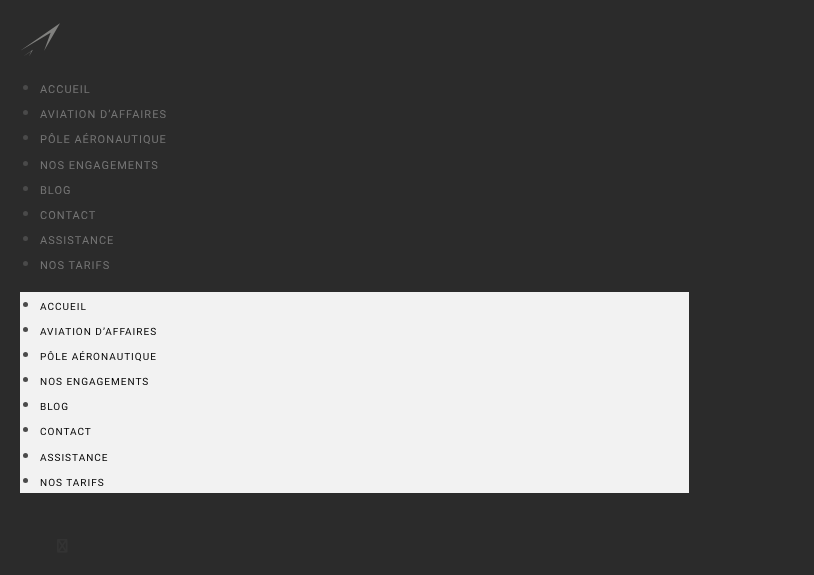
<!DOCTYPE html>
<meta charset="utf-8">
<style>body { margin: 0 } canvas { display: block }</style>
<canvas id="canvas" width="814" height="575"></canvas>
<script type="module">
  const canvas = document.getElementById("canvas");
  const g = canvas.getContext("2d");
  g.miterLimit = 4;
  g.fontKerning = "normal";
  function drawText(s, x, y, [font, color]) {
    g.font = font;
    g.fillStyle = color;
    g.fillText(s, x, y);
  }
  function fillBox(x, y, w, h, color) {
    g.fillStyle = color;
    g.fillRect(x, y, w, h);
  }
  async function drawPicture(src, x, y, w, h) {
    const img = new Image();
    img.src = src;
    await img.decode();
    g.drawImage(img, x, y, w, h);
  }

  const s1 = ["11px Roboto", "#757575"];
  const s2 = ["10px Roboto", "#000000"];

  fillBox(0, 0, 814, 575, "#2B2B2B");
  await drawPicture("pic1.png", 21, 23, 39, 33);
  g.fillStyle = "#4A4A4A";
  g.beginPath();
  g.arc(25.5, 87.5, 2.5, 0, Math.PI * 2);
  g.fill();
  g.letterSpacing = "1px";
  drawText("ACCUEIL", 40, 93, s1);
  g.fillStyle = "#4A4A4A";
  g.beginPath();
  g.arc(25.5, 112.5, 2.5, 0, Math.PI * 2);
  g.fill();
  drawText("AVIATION D’AFFAIRES", 40, 118, s1);
  g.fillStyle = "#4A4A4A";
  g.beginPath();
  g.arc(25.5, 137.5, 2.5, 0, Math.PI * 2);
  g.fill();
  drawText("PÔLE AÉRONAUTIQUE", 40, 143, s1);
  g.fillStyle = "#4A4A4A";
  g.beginPath();
  g.arc(25.5, 163.5, 2.5, 0, Math.PI * 2);
  g.fill();
  drawText("NOS ENGAGEMENTS", 40, 169, s1);
  g.fillStyle = "#4A4A4A";
  g.beginPath();
  g.arc(25.5, 188.5, 2.5, 0, Math.PI * 2);
  g.fill();
  drawText("BLOG", 40, 194, s1);
  g.fillStyle = "#4A4A4A";
  g.beginPath();
  g.arc(25.5, 213.5, 2.5, 0, Math.PI * 2);
  g.fill();
  drawText("CONTACT", 40, 219, s1);
  g.fillStyle = "#4A4A4A";
  g.beginPath();
  g.arc(25.5, 238.5, 2.5, 0, Math.PI * 2);
  g.fill();
  drawText("ASSISTANCE", 40, 244, s1);
  g.fillStyle = "#4A4A4A";
  g.beginPath();
  g.arc(25.5, 263.5, 2.5, 0, Math.PI * 2);
  g.fill();
  drawText("NOS TARIFS", 40, 269, s1);
  fillBox(20, 292, 669, 201, "#F2F2F2");
  g.fillStyle = "#4A4A4A";
  g.beginPath();
  g.arc(25.5, 304.5, 2.5, 0, Math.PI * 2);
  g.fill();
  drawText("ACCUEIL", 40, 310, s2);
  g.fillStyle = "#4A4A4A";
  g.beginPath();
  g.arc(25.5, 329.5, 2.5, 0, Math.PI * 2);
  g.fill();
  drawText("AVIATION D’AFFAIRES", 40, 335, s2);
  g.fillStyle = "#4A4A4A";
  g.beginPath();
  g.arc(25.5, 354.5, 2.5, 0, Math.PI * 2);
  g.fill();
  drawText("PÔLE AÉRONAUTIQUE", 40, 360, s2);
  g.fillStyle = "#4A4A4A";
  g.beginPath();
  g.arc(25.5, 379.5, 2.5, 0, Math.PI * 2);
  g.fill();
  drawText("NOS ENGAGEMENTS", 40, 385, s2);
  g.fillStyle = "#4A4A4A";
  g.beginPath();
  g.arc(25.5, 404.5, 2.5, 0, Math.PI * 2);
  g.fill();
  drawText("BLOG", 40, 410, s2);
  g.fillStyle = "#4A4A4A";
  g.beginPath();
  g.arc(25.5, 429.5, 2.5, 0, Math.PI * 2);
  g.fill();
  drawText("CONTACT", 40, 435, s2);
  g.fillStyle = "#4A4A4A";
  g.beginPath();
  g.arc(25.5, 455.5, 2.5, 0, Math.PI * 2);
  g.fill();
  drawText("ASSISTANCE", 40, 461, s2);
  g.fillStyle = "#4A4A4A";
  g.beginPath();
  g.arc(25.5, 480.5, 2.5, 0, Math.PI * 2);
  g.fill();
  drawText("NOS TARIFS", 40, 486, s2);
  await drawPicture("pic2.png", 57, 539, 11, 14);
</script>
